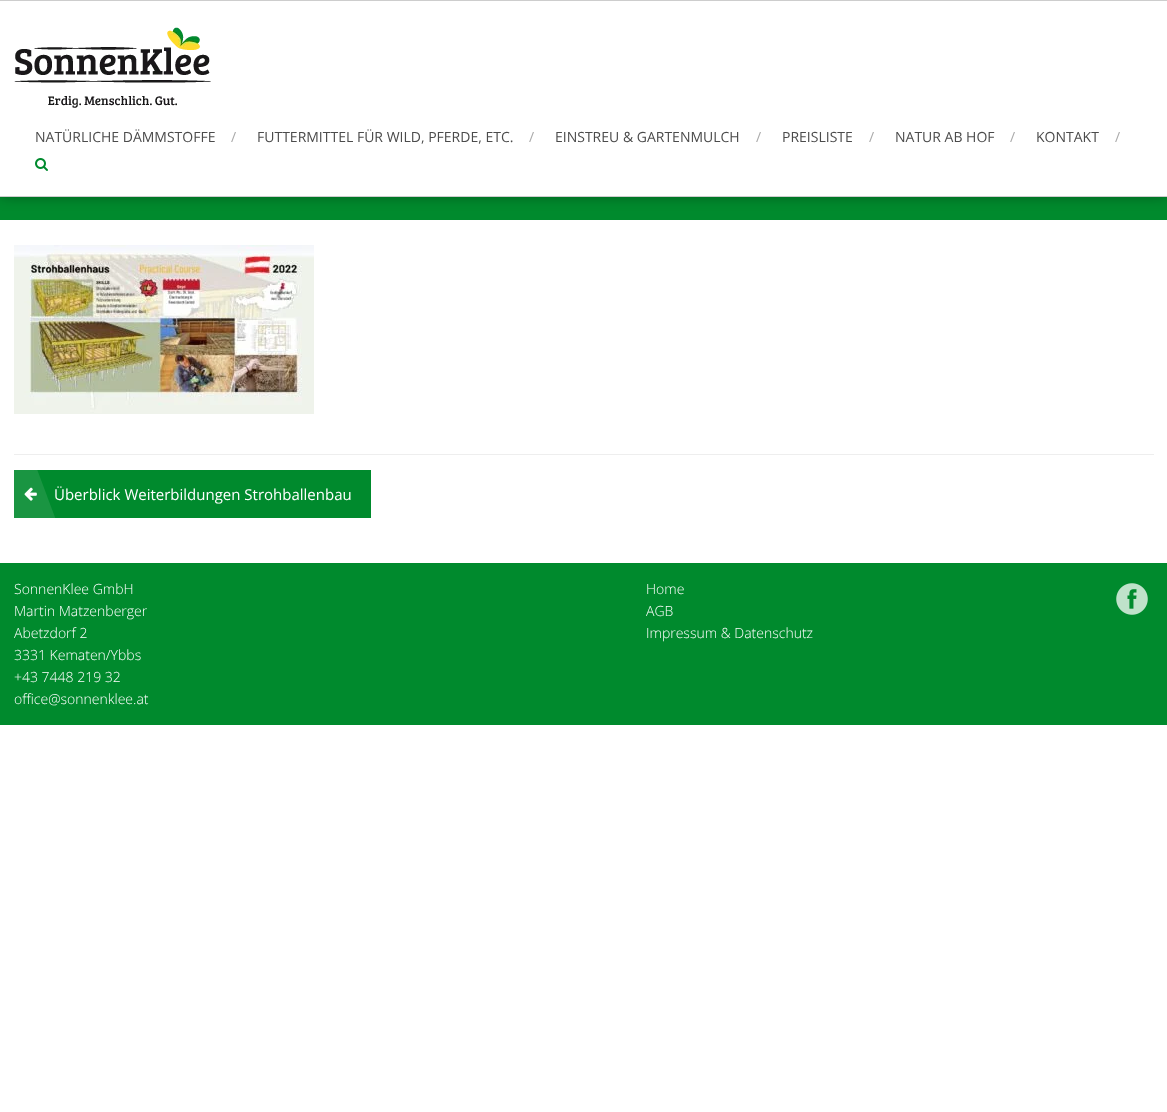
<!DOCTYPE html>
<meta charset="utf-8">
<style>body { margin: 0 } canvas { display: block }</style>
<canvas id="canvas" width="1167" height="1112"></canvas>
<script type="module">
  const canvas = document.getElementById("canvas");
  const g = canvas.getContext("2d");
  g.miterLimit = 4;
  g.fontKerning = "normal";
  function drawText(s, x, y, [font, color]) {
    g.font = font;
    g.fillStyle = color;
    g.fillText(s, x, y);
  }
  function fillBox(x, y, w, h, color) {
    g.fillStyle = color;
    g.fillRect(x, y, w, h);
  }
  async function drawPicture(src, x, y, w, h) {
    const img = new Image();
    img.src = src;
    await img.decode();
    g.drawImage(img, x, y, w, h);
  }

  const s1 = ["14px Open Sans", "#4B4B4B"];
  const s2 = ["14px Open Sans", "#AAAAAA"];
  const s3 = ["15px Open Sans", "#FFFFFF"];
  const s4 = ["300 14px Open Sans", "#FFFFFF"];

  fillBox(0, 0, 1167, 1112, "#FFFFFF");
  fillBox(0, 197, 1167, 23, "#008A2D");
  g.fillStyle = "rgba(0, 0, 0, 0.3)";
  g.filter = "blur(6.5px)";
  g.beginPath();
  g.rect(0, 0, 1167, 197);
  g.fill();
  g.filter = "none";
  fillBox(0, 1, 1167, 195, "#FFFFFF");
  fillBox(0, 0, 1167, 1, "#CDCDCD");
  fillBox(0, 196, 1167, 1, "#CDCDCD");
  await drawPicture("pic1.png", 14, 27, 197, 81);
  drawText("NATÜRLICHE DÄMMSTOFFE", 35, 142, s1);
  drawText("/", 231, 142, s2);
  drawText("FUTTERMITTEL FÜR WILD, PFERDE, ETC.", 257, 142, s1);
  drawText("/", 529, 142, s2);
  drawText("EINSTREU & GARTENMULCH", 555, 142, s1);
  drawText("/", 756, 142, s2);
  drawText("PREISLISTE", 782, 142, s1);
  drawText("/", 869, 142, s2);
  drawText("NATUR AB HOF", 895, 142, s1);
  drawText("/", 1010, 142, s2);
  drawText("KONTAKT", 1036, 142, s1);
  drawText("/", 1115, 142, s2);
  await drawPicture("pic2.png", 35, 158, 13, 13);
  fillBox(14, 454, 1140, 1, "#EEEEEE");
  await drawPicture("pic3.png", 14, 245, 300, 169);
  fillBox(14, 470, 357, 48, "#008A2D");
  await drawPicture("pic4.png", 24, 487, 13, 14);
  g.save();
  g.beginPath();
  g.rect(14, 470, 357, 48);
  g.clip();
  g.fillStyle = "rgba(255, 255, 255, 0.1)";
  g.beginPath();
  g.moveTo(28, 445);
  g.lineTo(56, 520);
  g.lineTo(-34, 553);
  g.lineTo(-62, 478);
  g.closePath();
  g.fill();
  g.restore();
  drawText("Überblick Weiterbildungen Strohballenbau", 54, 500, s3);
  fillBox(0, 563, 1167, 162, "#008A2D");
  drawText("SonnenKlee GmbH", 14, 594, s4);
  drawText("Martin Matzenberger", 14, 616, s4);
  drawText("Abetzdorf 2", 14, 638, s4);
  drawText("3331 Kematen/Ybbs", 14, 660, s4);
  drawText("+43 7448 219 32", 14, 682, s4);
  drawText("office@sonnenklee.at", 14, 704, s4);
  drawText("Home", 646, 594, s4);
  drawText("AGB", 646, 616, s4);
  drawText("Impressum & Datenschutz", 646, 638, s4);
  await drawPicture("pic5.png", 1116, 583, 32, 32);
</script>
